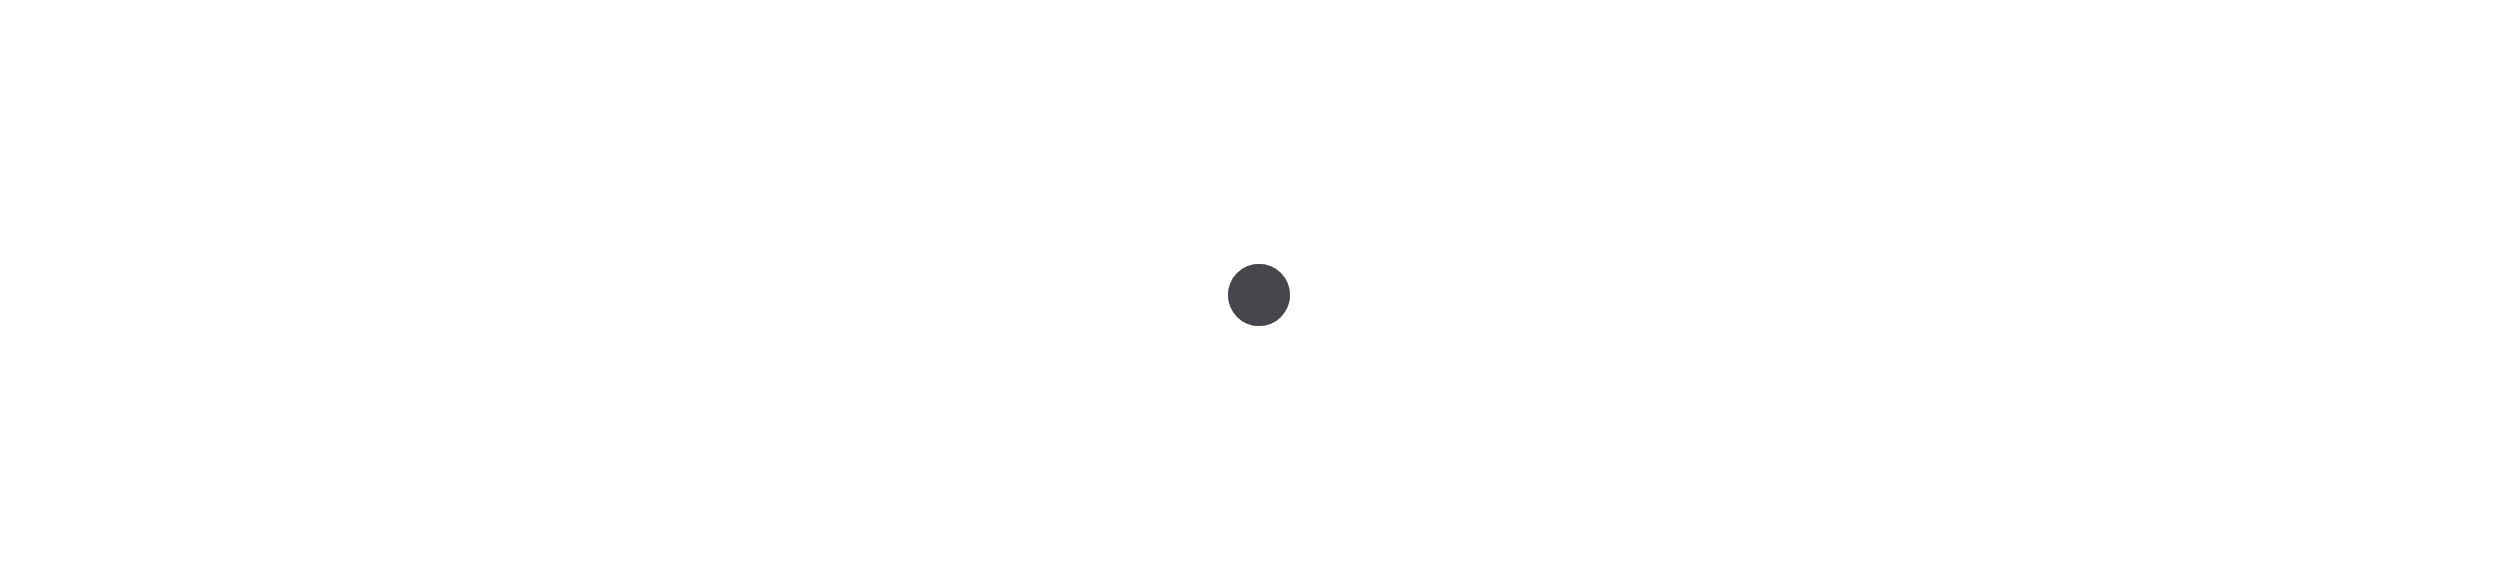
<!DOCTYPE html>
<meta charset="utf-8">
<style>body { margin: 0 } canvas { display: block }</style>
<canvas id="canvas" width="2517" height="588"></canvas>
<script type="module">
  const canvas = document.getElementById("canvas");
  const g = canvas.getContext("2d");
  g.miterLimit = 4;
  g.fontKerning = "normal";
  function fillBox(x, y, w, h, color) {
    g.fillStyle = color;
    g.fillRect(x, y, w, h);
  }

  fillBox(0, 0, 2517, 588, "#FFFFFF");
  g.fillStyle = "#65656A";
  g.beginPath();
  g.arc(1259, 295, 31, 0, Math.PI * 2);
  g.fill();
  g.fillStyle = "rgba(63, 62, 69, 0.8)";
  g.beginPath();
  g.arc(1259, 295, 31, 0, Math.PI * 2);
  g.fill();
</script>
